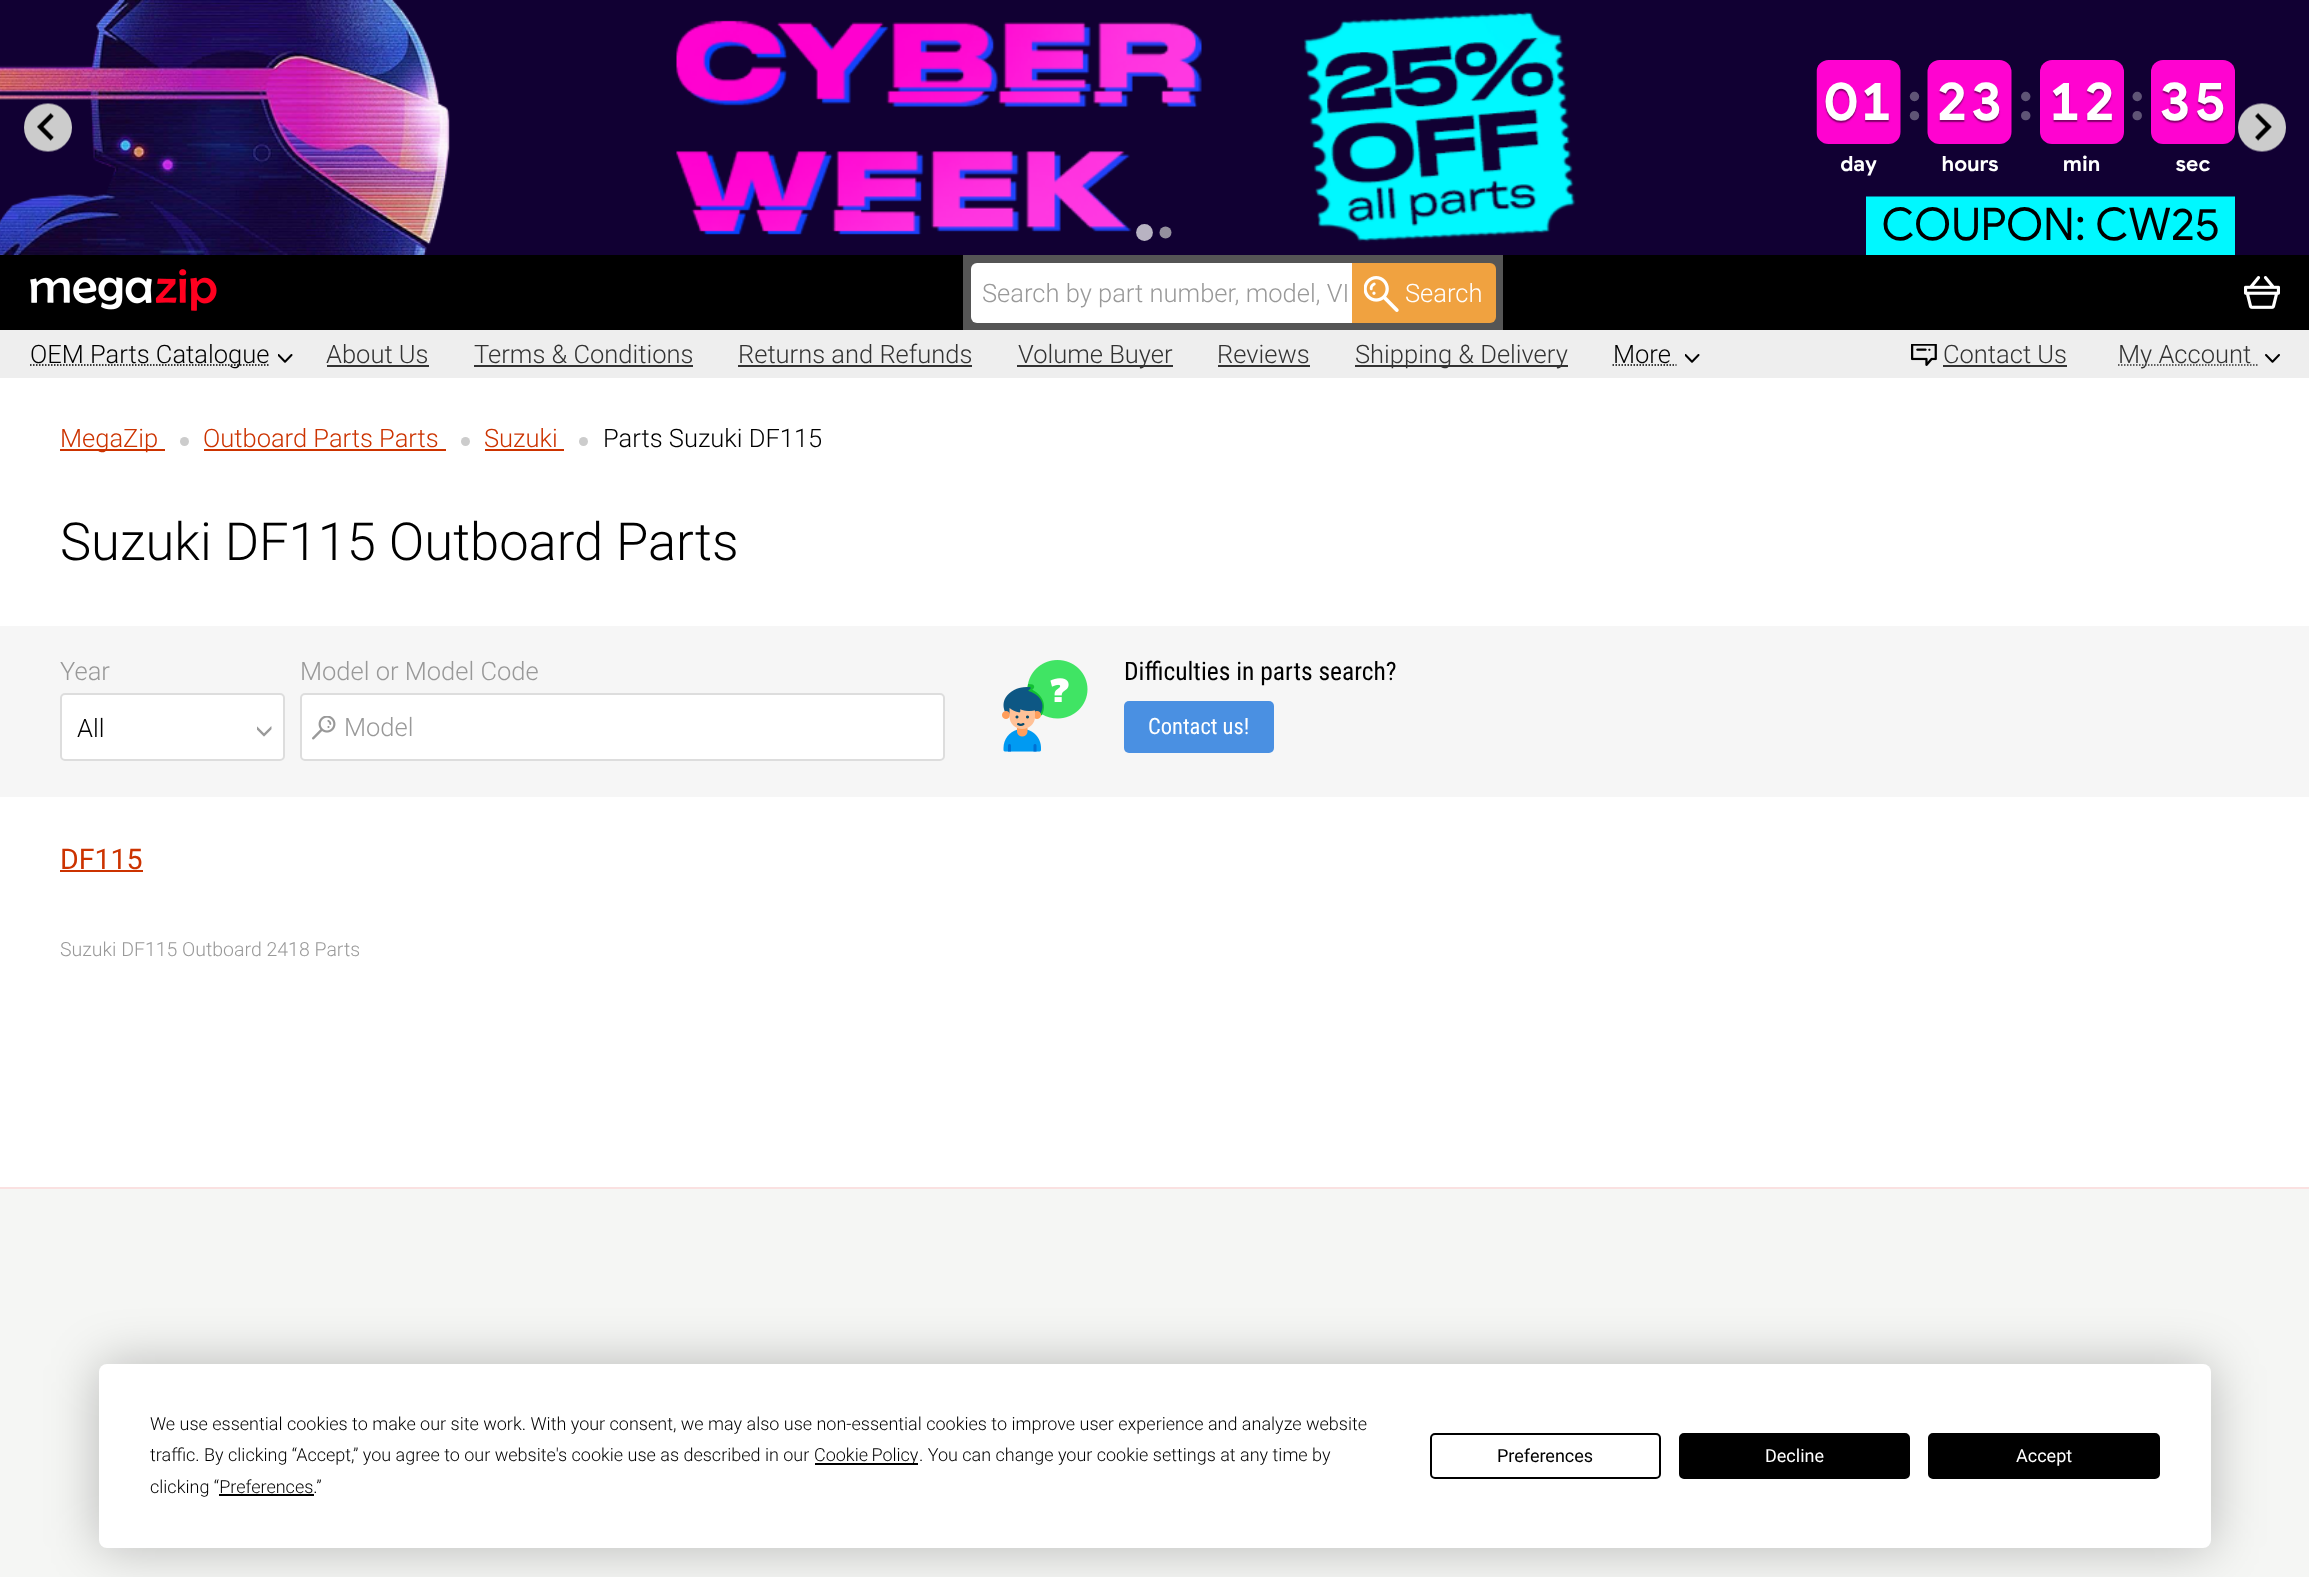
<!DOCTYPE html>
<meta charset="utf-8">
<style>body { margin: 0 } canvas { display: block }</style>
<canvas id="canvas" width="2309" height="1577"></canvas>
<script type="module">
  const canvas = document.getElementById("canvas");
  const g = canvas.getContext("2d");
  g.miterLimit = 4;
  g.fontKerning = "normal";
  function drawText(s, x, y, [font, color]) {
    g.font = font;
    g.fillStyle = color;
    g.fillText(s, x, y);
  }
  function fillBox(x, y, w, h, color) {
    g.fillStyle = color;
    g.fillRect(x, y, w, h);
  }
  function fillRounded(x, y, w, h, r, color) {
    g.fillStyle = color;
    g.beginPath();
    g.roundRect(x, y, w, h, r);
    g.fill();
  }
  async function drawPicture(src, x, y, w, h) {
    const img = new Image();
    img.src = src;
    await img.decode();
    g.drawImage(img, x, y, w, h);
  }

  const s1 = ["300 25.5px Roboto", "#999999"];
  const s2 = ["300 25.5px Roboto", "#FFFFFF"];
  const s3 = ["300 25.5px Roboto", "#000000"];
  const s4 = ["300 25.5px Roboto", "#333333"];
  const s5 = ["300 25.5px Roboto", "#CC3300"];
  const s6 = ["300 52.5px Roboto", "#000000"];
  const s7 = ["25.5px Roboto Condensed", "#000000"];
  const s8 = ["22.5px Roboto Condensed", "#FFFFFF"];
  const s9 = ["28.5px Roboto", "#CC3300"];
  const s10 = ["300 19.5px Roboto", "#999999"];
  const s11 = ["300 18px Roboto", "#000000"];
  const s12 = ["18px Roboto", "#000000"];
  const s13 = ["18px Roboto", "#FFFFFF"];

  fillBox(0, 0, 2309, 1577, "#FFFFFF");
  await drawPicture("pic1.png", 0, 0, 2309, 255);
  fillBox(0, 255, 2309, 75, "#000000");
  await drawPicture("pic2.png", 30, 269, 187, 42);
  fillBox(963, 255, 540, 75, "#555555");
  g.fillStyle = "#FFFFFF";
  g.beginPath();
  g.roundRect(971, 263, 381, 60, [6, 0, 0, 6]);
  g.fill();
  drawText("Search by part number, model, VI", 982, 302, s1);
  g.fillStyle = "#F0A240";
  g.beginPath();
  g.roundRect(1352, 263, 144, 60, [0, 6, 6, 0]);
  g.fill();
  await drawPicture("pic3.png", 1364, 276, 35, 36);
  drawText("Search", 1405, 302, s2);
  await drawPicture("pic4.png", 2244, 276, 36, 33);
  fillBox(0, 330, 2309, 48, "#EEEEEE");
  g.beginPath();
  g.moveTo(30, 365);
  g.lineTo(269.5, 365);
  g.strokeStyle = "#000000";
  g.lineWidth = 1.5;
  g.setLineDash([1.5, 1.5]);
  g.stroke();
  drawText("OEM Parts Catalogue", 30, 363, s3);
  await drawPicture("pic5.png", 278, 354, 15, 9);
  drawText("About Us", 326, 363, s4);
  fillBox(327, 365, 102, 2, "#333333");
  drawText("Terms & Conditions", 474, 363, s4);
  fillBox(474, 365, 219, 2, "#333333");
  drawText("Returns and Refunds", 738, 363, s4);
  fillBox(738, 365, 234, 2, "#333333");
  fillBox(1017, 365, 156, 2, "#333333");
  drawText("Volume Buyer", 1018, 363, s4);
  drawText("Reviews", 1217, 363, s4);
  fillBox(1218, 365, 92, 2, "#333333");
  fillBox(1355, 365, 213, 2, "#333333");
  drawText("Shipping & Delivery", 1355, 363, s4);
  drawText("More", 1613, 363, s3);
  g.beginPath();
  g.moveTo(1612.5, 365);
  g.lineTo(1676.5, 365);
  g.stroke();
  await drawPicture("pic5.png", 1685, 354, 15, 9);
  await drawPicture("pic6.png", 1911, 344, 26, 22);
  drawText("Contact Us", 1943, 363, s4);
  fillBox(1943, 365, 124, 2, "#333333");
  g.beginPath();
  g.moveTo(2118, 365);
  g.lineTo(2257.5, 365);
  g.strokeStyle = "#333333";
  g.stroke();
  drawText("My Account", 2118, 363, s4);
  await drawPicture("pic7.png", 2265, 354, 15, 9);
  fillBox(60, 449, 105, 2, "#CC3300");
  drawText("MegaZip", 60, 447, s5);
  g.fillStyle = "#CCCCCC";
  g.beginPath();
  g.arc(184.5, 441.5, 4.5, 0, Math.PI * 2);
  g.fill();
  drawText("Outboard Parts Parts", 203, 447, s5);
  fillBox(204, 449, 242, 2, "#CC3300");
  g.fillStyle = "#CCCCCC";
  g.beginPath();
  g.arc(465.5, 441.5, 4.5, 0, Math.PI * 2);
  g.fill();
  drawText("Suzuki", 484, 447, s5);
  fillBox(485, 449, 79, 2, "#CC3300");
  g.fillStyle = "#CCCCCC";
  g.beginPath();
  g.arc(583.5, 441.5, 4.5, 0, Math.PI * 2);
  g.fill();
  drawText("Parts Suzuki DF115", 603, 447, s3);
  drawText("Suzuki DF115 Outboard Parts", 60, 560, s6);
  fillBox(0, 626, 2309, 171, "#F6F6F6");
  drawText("Year", 60, 680, s1);
  g.fillStyle = "#FFFFFF";
  g.beginPath();
  g.roundRect(61, 694, 223, 66, 4);
  g.fill();
  g.strokeStyle = "#DDDDDD";
  g.lineWidth = 2;
  g.setLineDash([]);
  g.stroke();
  drawText("All", 77, 737, s3);
  await drawPicture("pic8.png", 257, 726, 15, 11);
  drawText("Model or Model Code", 300, 680, s1);
  g.fillStyle = "#FFFFFF";
  g.beginPath();
  g.roundRect(301, 694, 643, 66, 4);
  g.fill();
  g.stroke();
  await drawPicture("pic9.png", 312, 716, 24, 24);
  drawText("Model", 344, 736, s1);
  await drawPicture("pic10.png", 1002, 660, 86, 92);
  drawText("Difficulties in parts search?", 1124, 680, s7);
  fillRounded(1124, 701, 150, 52, 5, "#4A90E2");
  drawText("Contact us!", 1148, 734, s8);
  drawText("DF115", 60, 869, s9);
  fillBox(60, 870, 83, 2, "#CC3300");
  drawText("Suzuki DF115 Outboard 2418 Parts", 60, 956, s10);
  fillBox(0, 1189, 2309, 388, "#F5F6F4");
  fillBox(0, 1187, 2309, 2, "#FAE1E1");
  g.fillStyle = "rgba(0, 0, 0, 0.25)";
  g.filter = "blur(26px)";
  g.beginPath();
  g.roundRect(99, 1364, 2112, 184, 8);
  g.fill();
  g.filter = "none";
  fillRounded(99, 1364, 2112, 184, 8, "#FFFFFF");
  drawText("We use essential cookies to make our site work. With your consent, we may also use non-essential cookies to improve user experience and analyze website", 150, 1430, s11);
  drawText("traffic. By clicking “Accept,” you agree to our website's cookie use as described in our", 150, 1461, s11);
  fillBox(815, 1463, 103, 2, "#000000");
  g.wordSpacing = "-1px";
  drawText("Cookie Policy", 814, 1461, s11);
  g.wordSpacing = "0px";
  drawText(". You can change your cookie settings at any time by", 919, 1461, s11);
  drawText("clicking “Preferences.”", 150, 1493, s11);
  fillBox(219, 1494, 95, 2, "#000000");
  g.beginPath();
  g.roundRect(1431, 1434, 229, 44, 4);
  g.strokeStyle = "#000000";
  g.stroke();
  drawText("Preferences", 1497, 1462, s12);
  g.beginPath();
  g.roundRect(1680, 1434, 229, 44, 4);
  g.fill();
  g.stroke();
  drawText("Decline", 1765, 1462, s13);
  g.fillStyle = "#000000";
  g.beginPath();
  g.roundRect(1929, 1434, 230, 44, 4);
  g.fill();
  g.stroke();
  drawText("Accept", 2016, 1462, s13);
</script>
